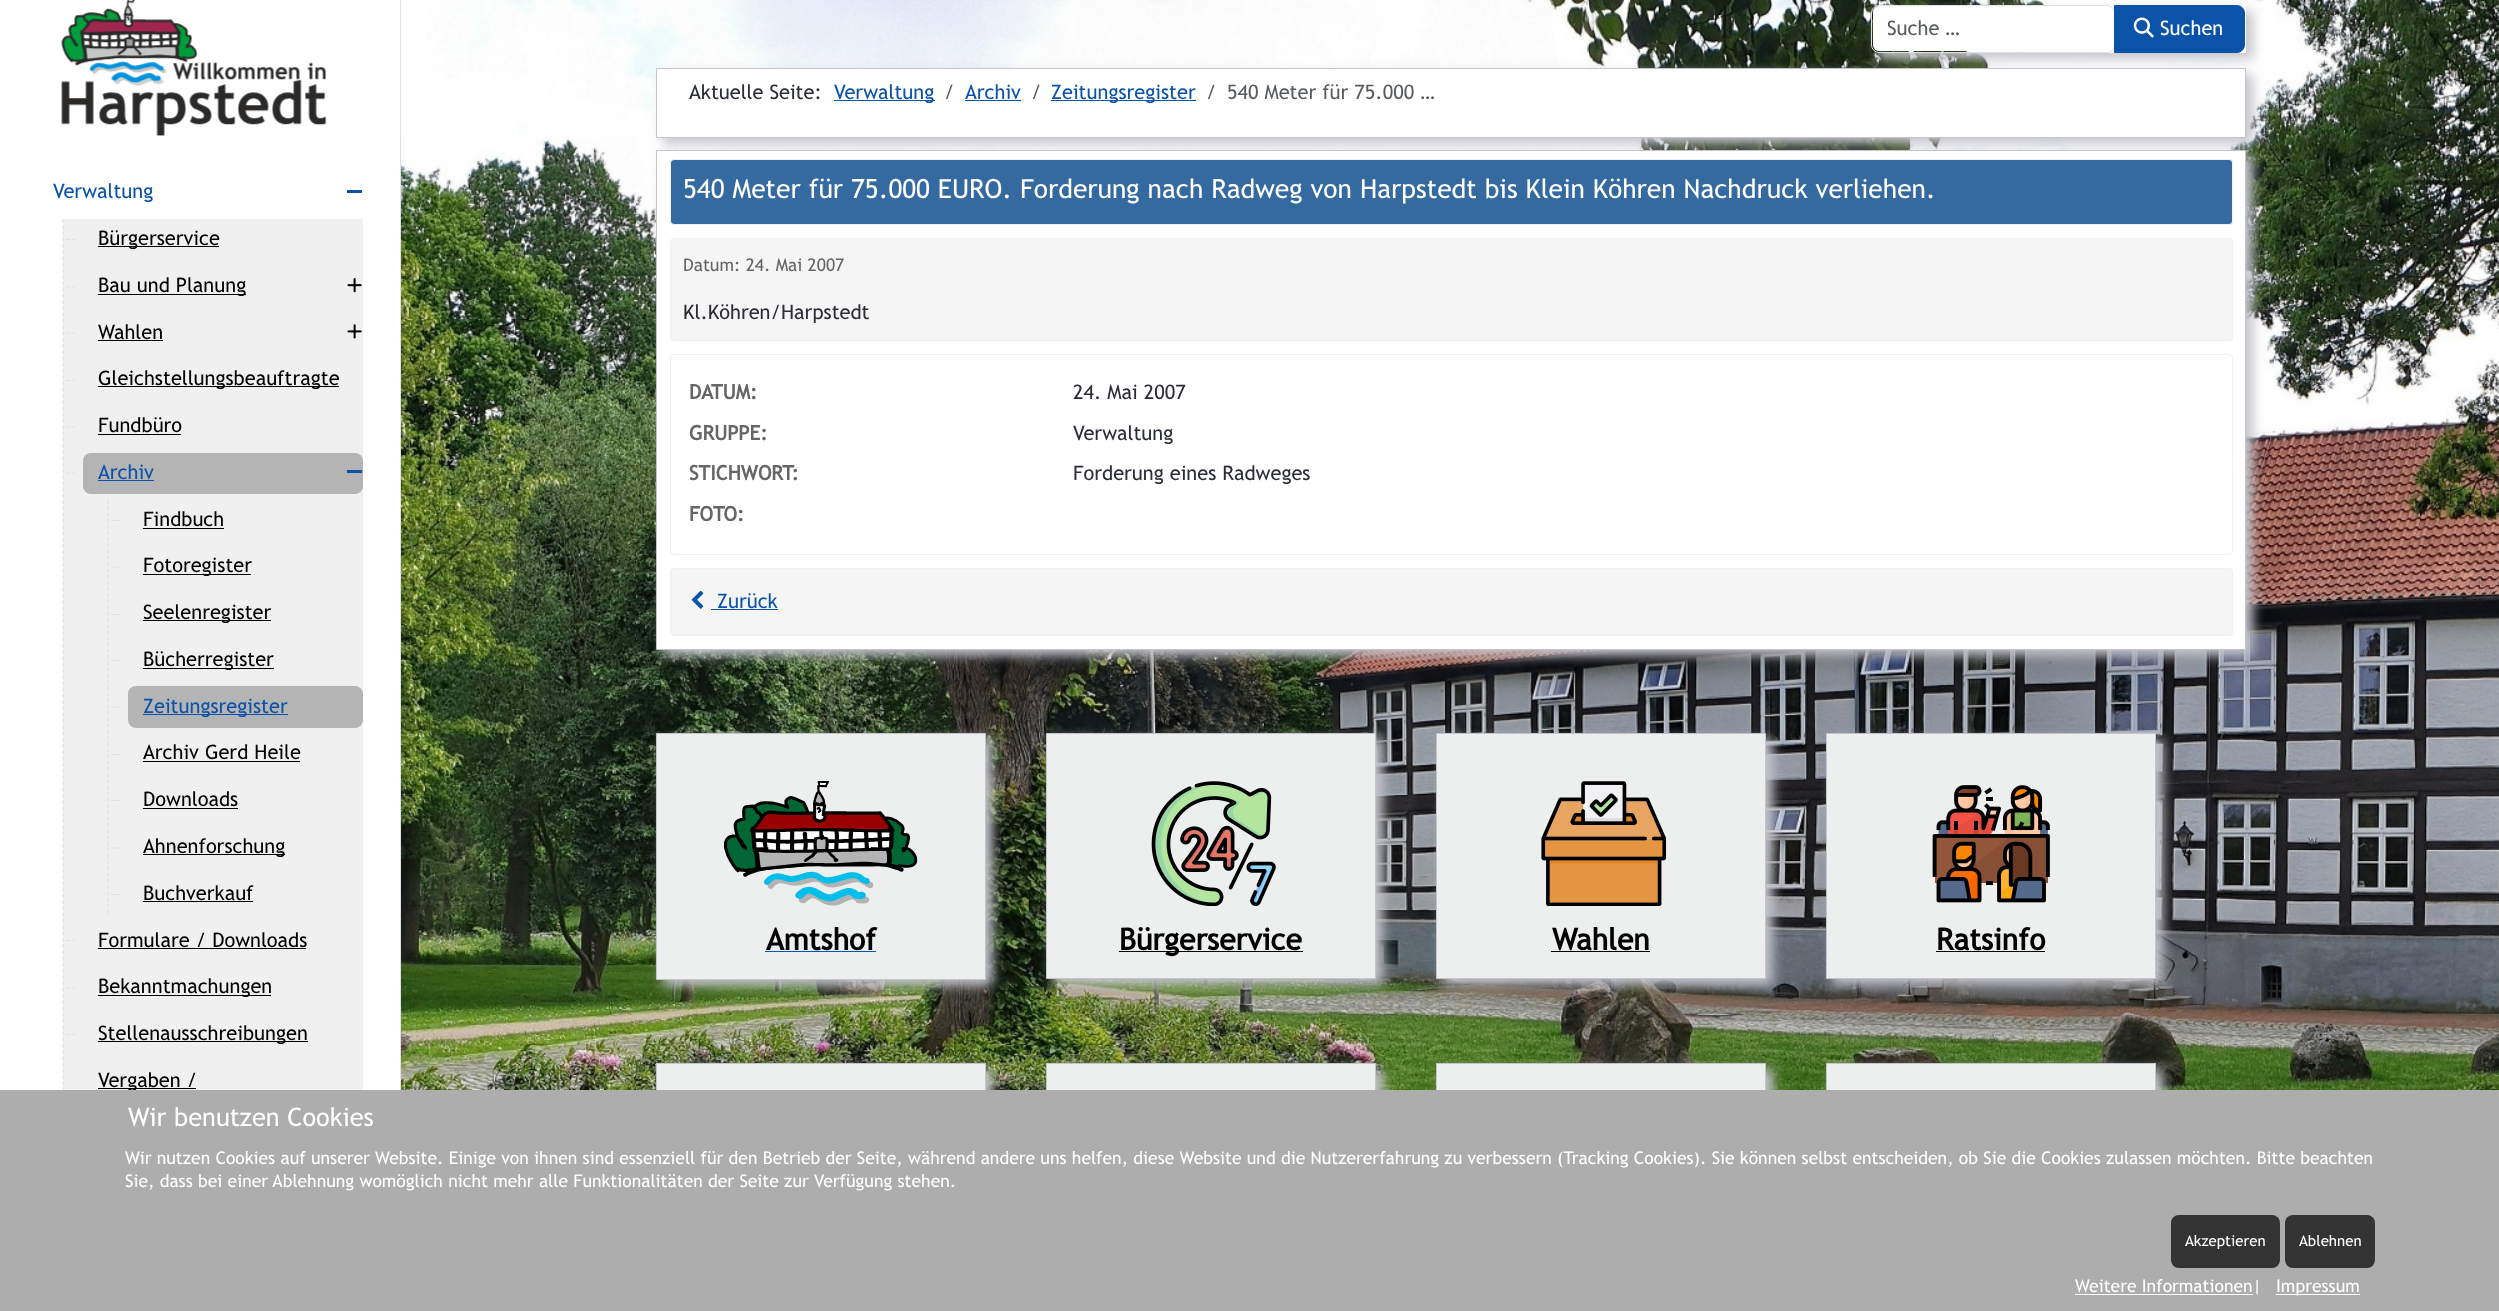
<!DOCTYPE html>
<meta charset="utf-8">
<style>body { margin: 0 } canvas { display: block }</style>
<canvas id="canvas" width="2499" height="1311"></canvas>
<script type="module">
  const canvas = document.getElementById("canvas");
  const g = canvas.getContext("2d");
  g.miterLimit = 4;
  g.fontKerning = "normal";
  function drawText(s, x, y, [font, color]) {
    g.font = font;
    g.fillStyle = color;
    g.fillText(s, x, y);
  }
  function fillBox(x, y, w, h, color) {
    g.fillStyle = color;
    g.fillRect(x, y, w, h);
  }
  function fillRounded(x, y, w, h, r, color) {
    g.fillStyle = color;
    g.beginPath();
    g.roundRect(x, y, w, h, r);
    g.fill();
  }
  async function drawPicture(src, x, y, w, h) {
    const img = new Image();
    img.src = src;
    await img.decode();
    g.drawImage(img, x, y, w, h);
  }

  const s1 = ["20px Trebuchet MS", "#0B53A9"];
  const s2 = ["20px Trebuchet MS", "#000000"];
  const s3 = ["20px Trebuchet MS", "#595C5F"];
  const s4 = ["20px Trebuchet MS", "#FFFFFF"];
  const s5 = ["20px Trebuchet MS", "#2C2E36"];
  const s6 = ["26.4px Trebuchet MS", "#FFFFFF"];
  const s7 = ["17.5px Trebuchet MS", "#666666"];
  const s8 = ["bold 20px Trebuchet MS", "#666666"];
  const s9 = ["bold 30px Trebuchet MS", "#000000"];
  const s10 = ["25.4px Trebuchet MS", "#FFFFFF"];
  const s11 = ["17.5px Trebuchet MS", "#FFFFFF"];
  const s12 = ["15px Trebuchet MS", "#FFFFFF"];

  fillBox(0, 0, 2499, 1311, "#FFFFFF");
  fillBox(400, 0, 1, 1090, "#DEE2E6");
  await drawPicture("pic1.png", 61, 0, 266, 136);
  drawText("Verwaltung", 53, 198, s1);
  fillBox(347, 190, 15, 3, "#0B53A9");
  fillBox(63, 219, 300, 871, "#F0F0F0");
  g.beginPath();
  g.moveTo(63, 219);
  g.lineTo(63, 1222.5);
  g.strokeStyle = "#DEE2E6";
  g.lineWidth = 1.2;
  g.setLineDash([3.75, 2.5]);
  g.stroke();
  g.beginPath();
  g.moveTo(66, 239.5);
  g.lineTo(70, 239.5);
  g.moveTo(71, 239.5);
  g.lineTo(75, 239.5);
  g.setLineDash([]);
  g.stroke();
  fillBox(98, 246, 121, 1, "#000000");
  drawText("Bürgerservice", 98, 245, s2);
  g.beginPath();
  g.moveTo(66, 287);
  g.lineTo(70, 287);
  g.moveTo(71, 287);
  g.lineTo(75, 287);
  g.stroke();
  fillBox(98, 294, 148, 1, "#000000");
  drawText("Bau und Planung", 98, 292, s2);
  await drawPicture("pic2.png", 347, 278, 15, 15);
  g.beginPath();
  g.moveTo(66, 333);
  g.lineTo(70, 333);
  g.moveTo(71, 333);
  g.lineTo(75, 333);
  g.stroke();
  drawText("Wahlen", 98, 339, s2);
  fillBox(98, 340, 65, 1, "#000000");
  await drawPicture("pic3.png", 347, 324, 15, 15);
  g.beginPath();
  g.moveTo(66, 380.5);
  g.lineTo(70, 380.5);
  g.moveTo(71, 380.5);
  g.lineTo(75, 380.5);
  g.stroke();
  fillBox(98, 386, 241, 1, "#000000");
  drawText("Gleichstellungsbeauftragte", 98, 385, s2);
  g.beginPath();
  g.moveTo(66, 427);
  g.lineTo(70, 427);
  g.moveTo(71, 427);
  g.lineTo(75, 427);
  g.stroke();
  drawText("Fundbüro", 98, 432, s2);
  fillBox(98, 434, 83, 1, "#000000");
  fillRounded(83, 453, 280, 41, 8, "#B4B4B4");
  g.beginPath();
  g.moveTo(66, 473);
  g.lineTo(70, 473);
  g.moveTo(71, 473);
  g.lineTo(75, 473);
  g.stroke();
  drawText("Archiv", 98, 479, s1);
  fillBox(98, 480, 56, 1, "#0B53A9");
  fillBox(347, 470, 15, 3, "#0B53A9");
  g.beginPath();
  g.moveTo(108, 500);
  g.lineTo(108, 914);
  g.setLineDash([3.75, 2.46]);
  g.stroke();
  g.beginPath();
  g.moveTo(111, 520.5);
  g.lineTo(115, 520.5);
  g.moveTo(116, 520.5);
  g.lineTo(120, 520.5);
  g.setLineDash([]);
  g.stroke();
  drawText("Findbuch", 143, 526, s2);
  fillBox(143, 528, 81, 1, "#000000");
  g.beginPath();
  g.moveTo(111, 567);
  g.lineTo(115, 567);
  g.moveTo(116, 567);
  g.lineTo(120, 567);
  g.stroke();
  fillBox(143, 574, 108, 1, "#000000");
  drawText("Fotoregister", 143, 572, s2);
  g.beginPath();
  g.moveTo(111, 614.5);
  g.lineTo(115, 614.5);
  g.moveTo(116, 614.5);
  g.lineTo(120, 614.5);
  g.stroke();
  fillBox(143, 620, 128, 1, "#000000");
  drawText("Seelenregister", 143, 619, s2);
  g.beginPath();
  g.moveTo(111, 660.5);
  g.lineTo(115, 660.5);
  g.moveTo(116, 660.5);
  g.lineTo(120, 660.5);
  g.stroke();
  fillBox(143, 668, 131, 1, "#000000");
  drawText("Bücherregister", 143, 666, s2);
  fillRounded(128, 686, 235, 42, 8, "#B4B4B4");
  g.beginPath();
  g.moveTo(111, 707);
  g.lineTo(115, 707);
  g.moveTo(116, 707);
  g.lineTo(120, 707);
  g.stroke();
  fillBox(143, 714, 145, 1, "#0B53A9");
  drawText("Zeitungsregister", 143, 713, s1);
  g.beginPath();
  g.moveTo(111, 754.5);
  g.lineTo(115, 754.5);
  g.moveTo(116, 754.5);
  g.lineTo(120, 754.5);
  g.stroke();
  drawText("Archiv Gerd Heile", 143, 759, s2);
  fillBox(143, 761, 157, 1, "#000000");
  g.beginPath();
  g.moveTo(111, 800.5);
  g.lineTo(115, 800.5);
  g.moveTo(116, 800.5);
  g.lineTo(120, 800.5);
  g.stroke();
  drawText("Downloads", 143, 806, s2);
  fillBox(143, 808, 95, 1, "#000000");
  g.beginPath();
  g.moveTo(111, 848);
  g.lineTo(115, 848);
  g.moveTo(116, 848);
  g.lineTo(120, 848);
  g.stroke();
  fillBox(143, 854, 142, 1, "#000000");
  drawText("Ahnenforschung", 143, 853, s2);
  g.beginPath();
  g.moveTo(111, 894.5);
  g.lineTo(115, 894.5);
  g.moveTo(116, 894.5);
  g.lineTo(120, 894.5);
  g.stroke();
  drawText("Buchverkauf", 143, 900, s2);
  fillBox(143, 901, 110, 1, "#000000");
  g.beginPath();
  g.moveTo(66, 940.5);
  g.lineTo(70, 940.5);
  g.moveTo(71, 940.5);
  g.lineTo(75, 940.5);
  g.stroke();
  drawText("Formulare / Downloads", 98, 947, s2);
  fillBox(98, 948, 208, 1, "#000000");
  g.beginPath();
  g.moveTo(66, 988);
  g.lineTo(70, 988);
  g.moveTo(71, 988);
  g.lineTo(75, 988);
  g.stroke();
  fillBox(98, 995, 173, 1, "#000000");
  drawText("Bekanntmachungen", 98, 993, s2);
  g.beginPath();
  g.moveTo(66, 1034.5);
  g.lineTo(70, 1034.5);
  g.moveTo(71, 1034.5);
  g.lineTo(75, 1034.5);
  g.stroke();
  fillBox(98, 1041, 210, 1, "#000000");
  drawText("Stellenausschreibungen", 98, 1040, s2);
  fillBox(98, 1088, 98, 1, "#000000");
  drawText("Vergaben /", 98, 1087, s2);
  await drawPicture("pic4.png", 401, 0, 2098, 1090);
  g.save();
  g.beginPath();
  g.moveTo(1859, 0);
  g.lineTo(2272, 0);
  g.lineTo(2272, 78);
  g.lineTo(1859, 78);
  g.closePath();
  g.moveTo(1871, 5);
  g.lineTo(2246, 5);
  g.lineTo(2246, 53);
  g.lineTo(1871, 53);
  g.closePath();
  g.clip("evenodd");
  g.fillStyle = "#C4C4CC";
  g.filter = "blur(6px)";
  g.beginPath();
  g.rect(1878, 11, 375, 48);
  g.fill();
  g.filter = "none";
  g.restore();
  fillRounded(1873, 6, 241, 45, 6, "#FFFFFF");
  g.beginPath();
  g.roundRect(1871.5, 5.5, 243, 47, 7.5);
  g.lineWidth = 1;
  g.stroke();
  g.save();
  g.beginPath();
  g.rect(1888, 15, 211, 26);
  g.clip();
  drawText("Suche …", 1887, 35, s3);
  g.restore();
  g.fillStyle = "#0B53A9";
  g.beginPath();
  g.roundRect(2114.5, 5.5, 130, 47, [0, 7.5, 7.5, 0]);
  g.fill();
  g.strokeStyle = "#0B53A9";
  g.stroke();
  await drawPicture("pic5.png", 2133, 17, 21, 21);
  drawText("Suchen", 2160, 35, s4);
  g.fillStyle = "#C4C4CC";
  g.filter = "blur(6px)";
  g.beginPath();
  g.rect(663, 74, 1590, 70);
  g.fill();
  g.filter = "none";
  g.fillStyle = "#FFFFFF";
  g.beginPath();
  g.rect(656.5, 68.5, 1589, 69);
  g.fill();
  g.strokeStyle = "#C4C4CC";
  g.stroke();
  drawText("Aktuelle Seite:", 689, 99, s5);
  fillBox(834, 100, 101, 1, "#0B53A9");
  drawText("Verwaltung", 834, 99, s1);
  drawText("/", 944, 99, s3);
  drawText("Archiv", 965, 99, s1);
  fillBox(965, 100, 56, 1, "#0B53A9");
  drawText("/", 1031, 99, s3);
  fillBox(1051, 100, 145, 1, "#0B53A9");
  drawText("Zeitungsregister", 1051, 99, s1);
  drawText("/", 1206, 99, s3);
  drawText("540 Meter für 75.000 …", 1227, 99, s3);
  g.fillStyle = "#C4C4CC";
  g.filter = "blur(6px)";
  g.beginPath();
  g.rect(663, 156, 1590, 500);
  g.fill();
  g.filter = "none";
  g.fillStyle = "#FFFFFF";
  g.beginPath();
  g.rect(656.5, 150.5, 1589, 499);
  g.fill();
  g.stroke();
  g.fillStyle = "#356AA0";
  g.beginPath();
  g.roundRect(670.5, 159.5, 1562, 65, 3.5);
  g.fill();
  g.strokeStyle = "#F0F0F0";
  g.stroke();
  drawText("540 Meter für 75.000 EURO. Forderung nach Radweg von Harpstedt bis Klein Köhren Nachdruck verliehen.", 683, 198, s6);
  g.fillStyle = "#F5F5F5";
  g.beginPath();
  g.roundRect(670.5, 238.5, 1562, 102, 3.5);
  g.fill();
  g.stroke();
  drawText("Datum: 24. Mai 2007", 683, 271, s7);
  drawText("Kl.Köhren/Harpstedt", 683, 319, s5);
  g.beginPath();
  g.roundRect(670.5, 354.5, 1562, 200, 3.5);
  g.stroke();
  drawText("DATUM:", 689, 399, s8);
  drawText("24. Mai 2007", 1073, 399, s5);
  drawText("GRUPPE:", 689, 440, s8);
  drawText("Verwaltung", 1073, 440, s5);
  drawText("STICHWORT:", 689, 480, s8);
  drawText("Forderung eines Radweges", 1073, 480, s5);
  drawText("FOTO:", 689, 521, s8);
  g.fillStyle = "#F5F5F5";
  g.beginPath();
  g.roundRect(670.5, 568.5, 1562, 67, 3.5);
  g.fill();
  g.stroke();
  await drawPicture("pic6.png", 691, 590, 13, 19);
  drawText("Zurück", 717, 608, s1);
  fillBox(711, 609, 67, 1, "#0B53A9");
  g.fillStyle = "#C4C4CC";
  g.filter = "blur(6px)";
  g.beginPath();
  g.rect(663, 739, 330, 247);
  g.fill();
  g.filter = "none";
  g.fillStyle = "#EDEFEE";
  g.beginPath();
  g.rect(656.5, 733.5, 329, 246);
  g.fill();
  g.strokeStyle = "#C4C4CC";
  g.stroke();
  await drawPicture("pic7.png", 724, 781, 194, 125);
  drawText("Amtshof", 766, 950, s9);
  fillBox(765, 951, 111, 1, "#0B53A9");
  g.fillStyle = "#C4C4CC";
  g.filter = "blur(6px)";
  g.beginPath();
  g.rect(1053, 739, 330, 246);
  g.fill();
  g.filter = "none";
  g.fillStyle = "#EDEFEE";
  g.beginPath();
  g.rect(1046.5, 733.5, 329, 245);
  g.fill();
  g.stroke();
  await drawPicture("pic8.png", 1151, 781, 125, 125);
  fillBox(1119, 951, 184, 1, "#000000");
  drawText("Bürgerservice", 1119, 950, s9);
  g.fillStyle = "#C4C4CC";
  g.filter = "blur(6px)";
  g.beginPath();
  g.rect(1443, 739, 330, 246);
  g.fill();
  g.filter = "none";
  g.fillStyle = "#EDEFEE";
  g.beginPath();
  g.rect(1436.5, 733.5, 329, 245);
  g.fill();
  g.stroke();
  await drawPicture("pic9.png", 1541, 781, 125, 125);
  drawText("Wahlen", 1552, 950, s9);
  fillBox(1551, 951, 99, 1, "#000000");
  g.fillStyle = "#C4C4CC";
  g.filter = "blur(6px)";
  g.beginPath();
  g.rect(1833, 739, 330, 246);
  g.fill();
  g.filter = "none";
  g.fillStyle = "#EDEFEE";
  g.beginPath();
  g.rect(1826.5, 733.5, 329, 245);
  g.fill();
  g.stroke();
  await drawPicture("pic10.png", 1932, 785, 118, 118);
  drawText("Ratsinfo", 1936, 950, s9);
  fillBox(1936, 951, 109, 1, "#000000");
  g.fillStyle = "#C4C4CC";
  g.filter = "blur(6px)";
  g.beginPath();
  g.rect(663, 1069, 330, 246);
  g.fill();
  g.filter = "none";
  fillBox(657, 1064, 328, 26, "#EDEFEE");
  g.strokeRect(656.5, 1063.5, 329, 245);
  g.fillStyle = "#C4C4CC";
  g.filter = "blur(6px)";
  g.beginPath();
  g.rect(1053, 1069, 330, 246);
  g.fill();
  g.filter = "none";
  fillBox(1047, 1064, 328, 26, "#EDEFEE");
  g.strokeRect(1046.5, 1063.5, 329, 245);
  g.fillStyle = "#C4C4CC";
  g.filter = "blur(6px)";
  g.beginPath();
  g.rect(1443, 1069, 330, 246);
  g.fill();
  g.filter = "none";
  fillBox(1437, 1064, 328, 26, "#EDEFEE");
  g.strokeRect(1436.5, 1063.5, 329, 245);
  g.fillStyle = "#C4C4CC";
  g.filter = "blur(6px)";
  g.beginPath();
  g.rect(1833, 1069, 330, 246);
  g.fill();
  g.filter = "none";
  fillBox(1827, 1064, 328, 26, "#EDEFEE");
  g.strokeRect(1826.5, 1063.5, 329, 245);
  fillBox(0, 1090, 2499, 221, "#ADADAD");
  drawText("Wir benutzen Cookies", 128, 1126, s10);
  drawText("Wir nutzen Cookies auf unserer Website. Einige von ihnen sind essenziell für den Betrieb der Seite, während andere uns helfen, diese Website und die Nutzererfahrung zu verbessern (Tracking Cookies). Sie können selbst entscheiden, ob Sie die Cookies zulassen möchten. Bitte beachten", 125, 1164, s11);
  drawText("Sie, dass bei einer Ablehnung womöglich nicht mehr alle Funktionalitäten der Seite zur Verfügung stehen.", 125, 1187, s11);
  fillRounded(2171, 1215, 109, 53, 8, "#333333");
  drawText("Akzeptieren", 2185, 1246, s12);
  fillRounded(2285, 1215, 90, 53, 8, "#333333");
  drawText("Ablehnen", 2299, 1246, s12);
  fillBox(2075, 1294, 178, 1, "#FFFFFF");
  drawText("Weitere Informationen|", 2075, 1292, s11);
  fillBox(2276, 1294, 84, 1, "#FFFFFF");
  drawText("Impressum", 2276, 1292, s11);
</script>
